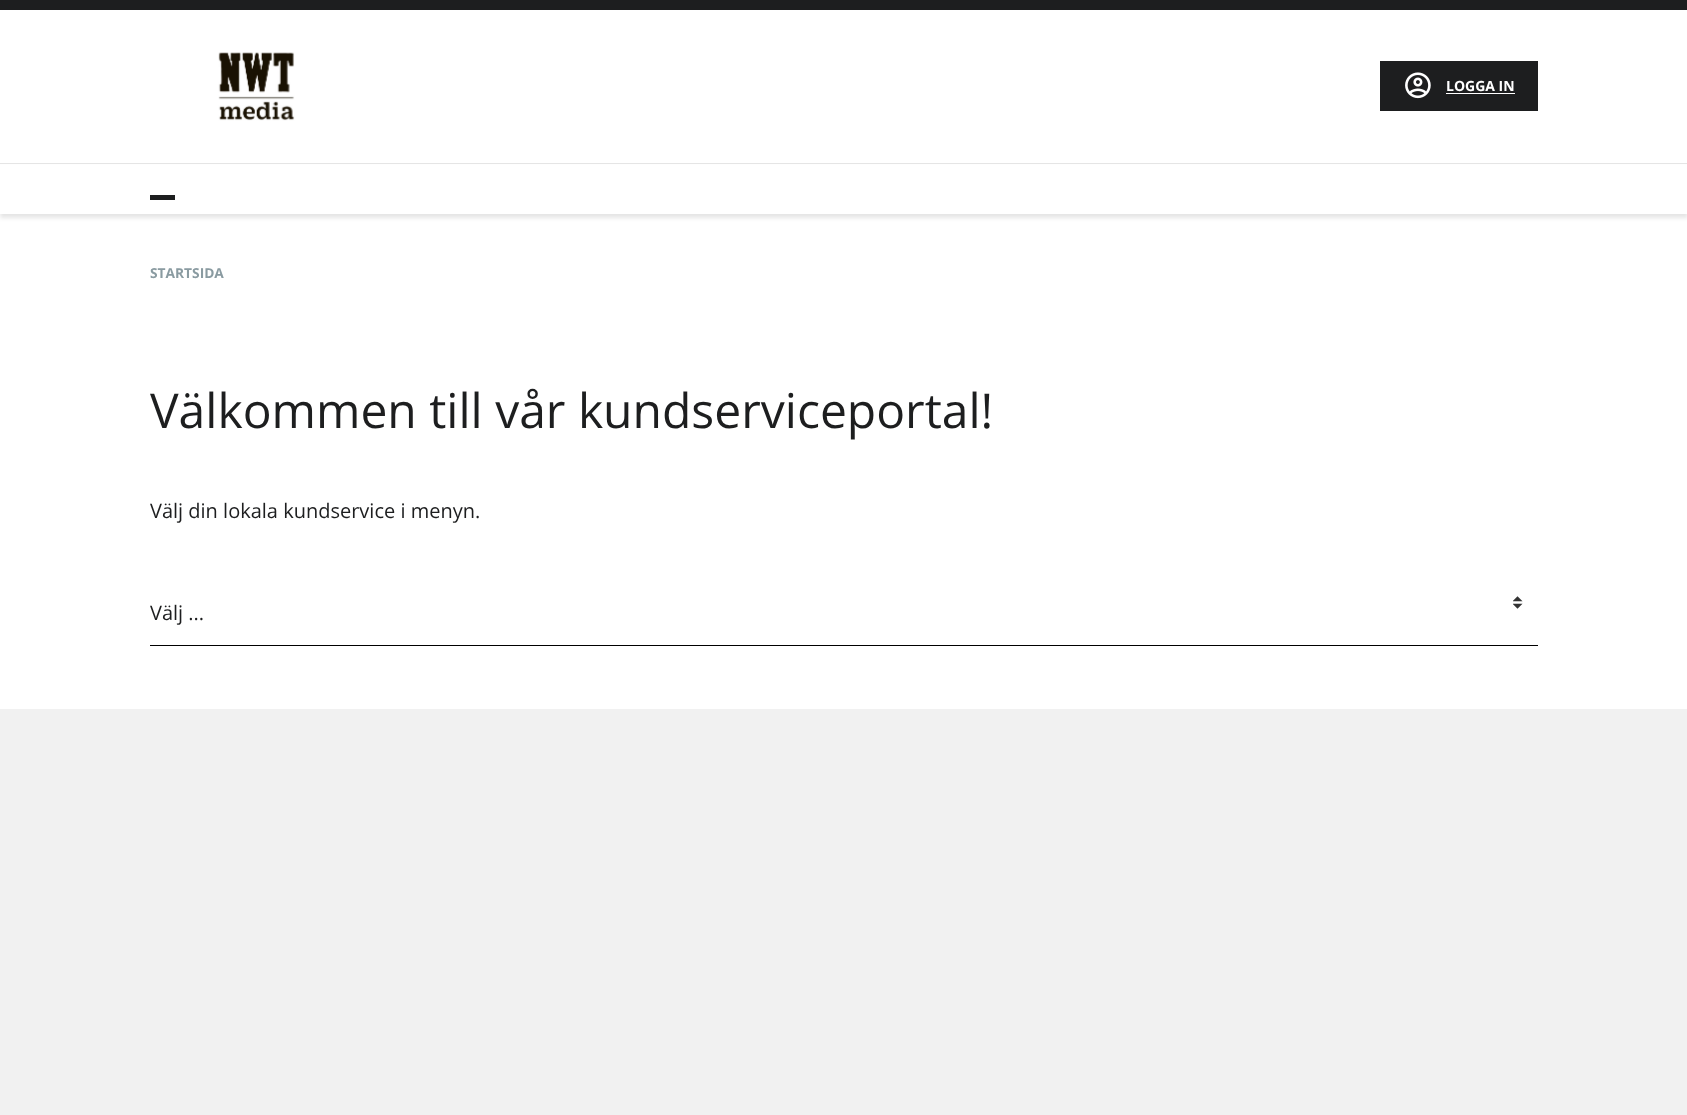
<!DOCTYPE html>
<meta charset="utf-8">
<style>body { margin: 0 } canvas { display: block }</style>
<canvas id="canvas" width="1687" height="1115"></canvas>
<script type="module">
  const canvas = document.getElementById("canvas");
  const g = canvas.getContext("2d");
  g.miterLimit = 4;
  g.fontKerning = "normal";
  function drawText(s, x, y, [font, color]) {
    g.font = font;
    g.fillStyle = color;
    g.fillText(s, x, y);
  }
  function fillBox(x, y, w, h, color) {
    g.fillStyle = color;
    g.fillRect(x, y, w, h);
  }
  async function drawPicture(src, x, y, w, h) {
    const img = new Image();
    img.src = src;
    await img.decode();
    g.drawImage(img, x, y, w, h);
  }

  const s1 = ["bold 14px Open Sans", "#FFFFFF"];
  const s2 = ["bold 13.75px Open Sans", "#8A9BA1"];
  const s3 = ["48px Open Sans", "#1D1E1F"];
  const s4 = ["20px Open Sans", "#1D1E1F"];

  fillBox(0, 0, 1687, 1115, "#F1F1F1");
  fillBox(0, 0, 1687, 10, "#1D1E1F");
  fillBox(0, 10, 1687, 699, "#FFFFFF");
  g.fillStyle = "rgba(0, 0, 0, 0.1)";
  g.filter = "blur(2px)";
  g.beginPath();
  g.rect(0, 168, 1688, 50);
  g.fill();
  g.filter = "none";
  fillBox(0, 163, 1687, 1, "#E5E5E5");
  await drawPicture("pic1.png", 218, 52, 77, 69);
  fillBox(1380, 61, 158, 50, "#1D1E1F");
  await drawPicture("pic2.png", 1405, 72, 26, 27);
  drawText("LOGGA IN", 1446, 91, s1);
  fillBox(1446, 93, 69, 1, "#FFFFFF");
  fillBox(0, 165, 1687, 49, "#FFFFFF");
  fillBox(150, 195, 25, 5, "#1D1E1F");
  drawText("STARTSIDA", 150, 278, s2);
  drawText("Välkommen till vår kundserviceportal!", 150, 428, s3);
  drawText("Välj din lokala kundservice i menyn.", 150, 518, s4);
  await drawPicture("pic3.png", 1513, 596, 10, 13);
  fillBox(150, 645, 1388, 1, "#000000");
  drawText("Välj ...", 150, 620, s4);
</script>
